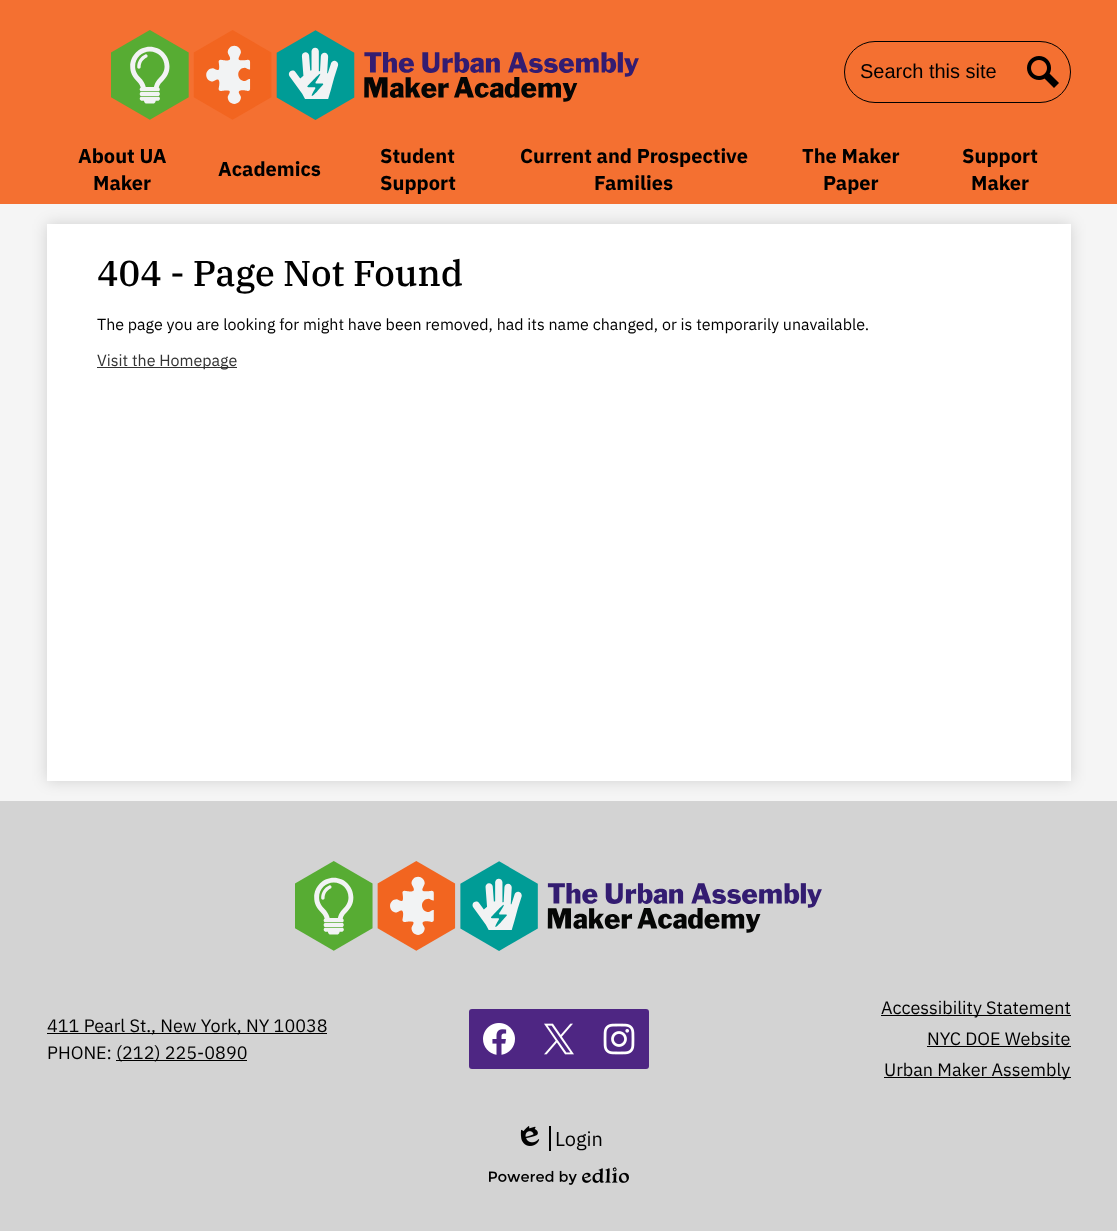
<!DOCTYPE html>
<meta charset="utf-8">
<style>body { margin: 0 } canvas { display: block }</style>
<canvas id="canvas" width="1117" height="1231"></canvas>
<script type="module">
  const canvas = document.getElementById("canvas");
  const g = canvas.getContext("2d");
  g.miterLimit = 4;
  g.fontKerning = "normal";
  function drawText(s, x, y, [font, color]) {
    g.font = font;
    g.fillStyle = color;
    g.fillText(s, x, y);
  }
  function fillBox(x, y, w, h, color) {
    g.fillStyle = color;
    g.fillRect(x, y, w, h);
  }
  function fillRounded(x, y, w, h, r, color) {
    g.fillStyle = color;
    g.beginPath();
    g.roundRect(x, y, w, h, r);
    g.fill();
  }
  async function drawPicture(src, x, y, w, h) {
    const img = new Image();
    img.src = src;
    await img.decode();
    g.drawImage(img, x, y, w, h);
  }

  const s1 = ["20px Liberation Sans", "#000000"];
  const s2 = ["bold 20px IBM Plex Sans", "#000000"];
  const s3 = ["500 36px IBM Plex Serif", "#000000"];
  const s4 = ["16px IBM Plex Sans", "#000000"];
  const s5 = ["16px IBM Plex Sans", "#333333"];
  const s6 = ["18px IBM Plex Sans", "#000000"];
  const s7 = ["20px IBM Plex Sans", "#000000"];

  fillBox(0, 0, 1117, 1231, "#F5F5F5");
  fillBox(0, 801, 1117, 430, "#D3D3D3");
  g.fillStyle = "rgba(0, 0, 0, 0.15)";
  g.filter = "blur(7.5px)";
  g.beginPath();
  g.rect(47, 224, 1024, 557);
  g.fill();
  g.filter = "none";
  fillBox(0, 0, 1117, 204, "#F47031");
  await drawPicture("pic1.png", 111, 30, 528, 90);
  g.beginPath();
  g.roundRect(844.5, 41.5, 226, 61, 30.5);
  g.strokeStyle = "#000000";
  g.stroke();
  drawText("Search this site", 860, 78, s1);
  await drawPicture("pic2.png", 1027, 56, 32, 32);
  drawText("About UA", 78, 163, s2);
  drawText("Maker", 93, 190, s2);
  drawText("Academics", 218, 176, s2);
  drawText("Student", 380, 163, s2);
  drawText("Support", 380, 190, s2);
  drawText("Current and Prospective", 520, 163, s2);
  drawText("Families", 594, 190, s2);
  drawText("The Maker", 802, 163, s2);
  drawText("Paper", 823, 190, s2);
  drawText("Support", 962, 163, s2);
  drawText("Maker", 971, 190, s2);
  fillBox(47, 224, 1024, 557, "#FFFFFF");
  drawText("404 - Page Not Found", 97, 286, s3);
  drawText("The page you are looking for might have been removed, had its name changed, or is temporarily unavailable.", 97, 330, s4);
  fillBox(97, 367, 140, 1, "#333333");
  drawText("Visit the Homepage", 97, 366, s5);
  await drawPicture("pic3.png", 295, 861, 527, 90);
  fillBox(47, 1033, 280, 1, "#000000");
  drawText("411 Pearl St., New York, NY 10038", 47, 1032, s6);
  drawText("PHONE:", 47, 1059, s6);
  fillBox(116, 1060, 131, 1, "#000000");
  drawText("(212) 225-0890", 116, 1059, s6);
  fillRounded(469, 1009, 180, 60, 3, "#4E2683");
  await drawPicture("pic4.png", 483, 1023, 32, 32);
  await drawPicture("pic5.png", 544, 1023, 30, 32);
  await drawPicture("pic6.png", 603, 1023, 32, 32);
  fillBox(881, 1015, 190, 1, "#000000");
  drawText("Accessibility Statement", 881, 1014, s6);
  drawText("NYC DOE Website", 927, 1045, s6);
  fillBox(927, 1046, 144, 1, "#000000");
  fillBox(884, 1077, 187, 1, "#000000");
  drawText("Urban Maker Assembly", 884, 1076, s6);
  fillBox(549, 1126, 2, 25, "#000000");
  await drawPicture("pic7.png", 520, 1126, 20, 20);
  drawText("Login", 555, 1146, s7);
  await drawPicture("pic8.png", 489, 1167, 140, 18);
</script>
